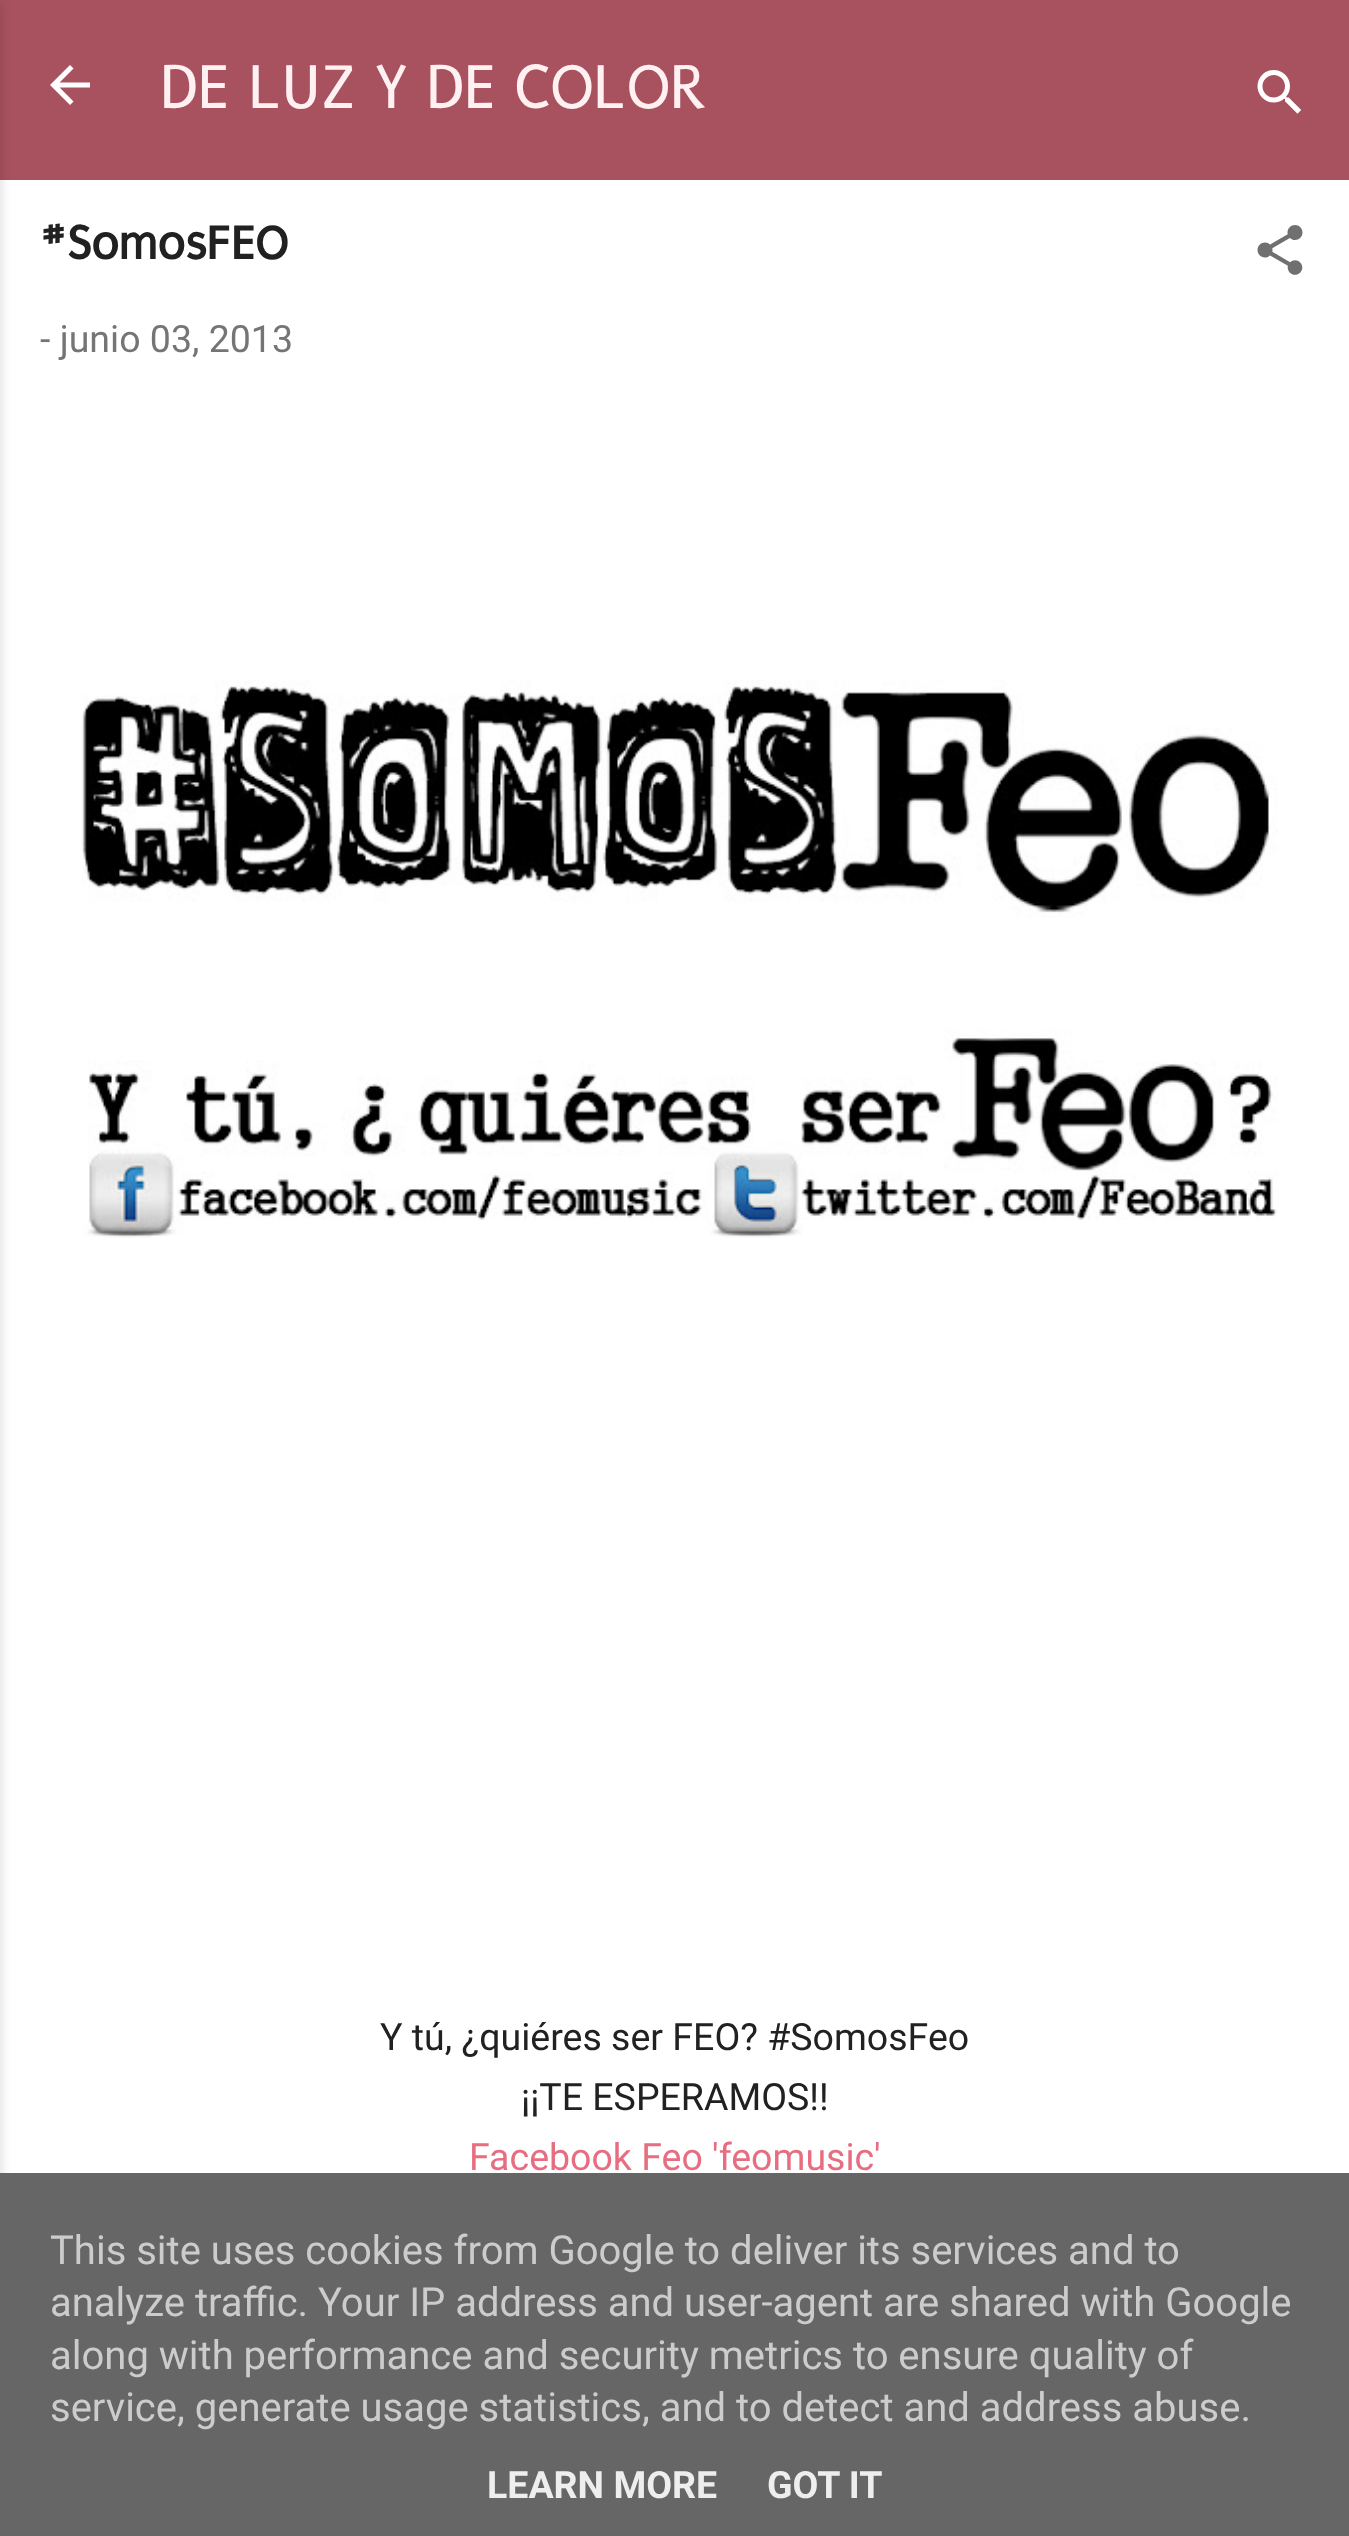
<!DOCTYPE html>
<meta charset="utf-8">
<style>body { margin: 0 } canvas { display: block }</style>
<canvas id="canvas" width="1349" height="2536"></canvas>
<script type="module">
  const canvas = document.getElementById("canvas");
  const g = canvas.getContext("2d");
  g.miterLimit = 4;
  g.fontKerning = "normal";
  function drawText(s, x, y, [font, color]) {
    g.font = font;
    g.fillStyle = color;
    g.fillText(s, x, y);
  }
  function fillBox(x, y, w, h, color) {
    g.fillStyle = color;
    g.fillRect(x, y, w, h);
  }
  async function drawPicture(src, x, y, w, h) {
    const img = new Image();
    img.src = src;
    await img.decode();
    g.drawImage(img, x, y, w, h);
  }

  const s1 = ["66.75px Puritan", "#FFF0F2"];
  const s2 = ["bold 50px Puritan", "#212121"];
  const s3 = ["37.5px Roboto", "#757575"];
  const s4 = ["37.5px Roboto", "#212121"];
  const s5 = ["37.5px Roboto", "#E76D80"];
  const s6 = ["40px Roboto", "#CCCCCC"];
  const s7 = ["bold 37.5px Roboto", "#EEEEEE"];

  fillBox(0, 0, 1349, 2536, "#A8525F");
  fillBox(0, 180, 1349, 1993, "#FFFFFF");
  g.fillStyle = "rgba(0, 0, 0, 0.1)";
  g.filter = "blur(4px)";
  g.beginPath();
  g.rect(-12, 3, 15, 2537);
  g.fill();
  g.filter = "none";
  await drawPicture("pic1.png", 50, 65, 40, 40);
  drawText("DE LUZ Y DE COLOR", 160, 108, s1);
  await drawPicture("pic2.png", 1257, 70, 44, 44);
  drawText("#SomosFEO", 40, 259, s2);
  await drawPicture("pic3.png", 1257, 225, 46, 50);
  drawText("- junio 03, 2013", 40, 352, s3);
  await drawPicture("pic4.png", 81, 680, 1197, 558);
  drawText("Y tú, ¿quiéres ser FEO? #SomosFeo", 380, 2050, s4);
  drawText("¡¡TE ESPERAMOS!!", 521, 2110, s4);
  drawText("Facebook Feo 'feomusic'", 469, 2170, s5);
  fillBox(0, 2173, 1349, 363, "#666666");
  drawText("This site uses cookies from Google to deliver its services and to", 50, 2264, s6);
  drawText("analyze traffic. Your IP address and user-agent are shared with Google", 50, 2316, s6);
  drawText("along with performance and security metrics to ensure quality of", 50, 2369, s6);
  drawText("service, generate usage statistics, and to detect and address abuse.", 50, 2421, s6);
  drawText("LEARN MORE", 487, 2498, s7);
  drawText("GOT IT", 767, 2498, s7);
</script>
